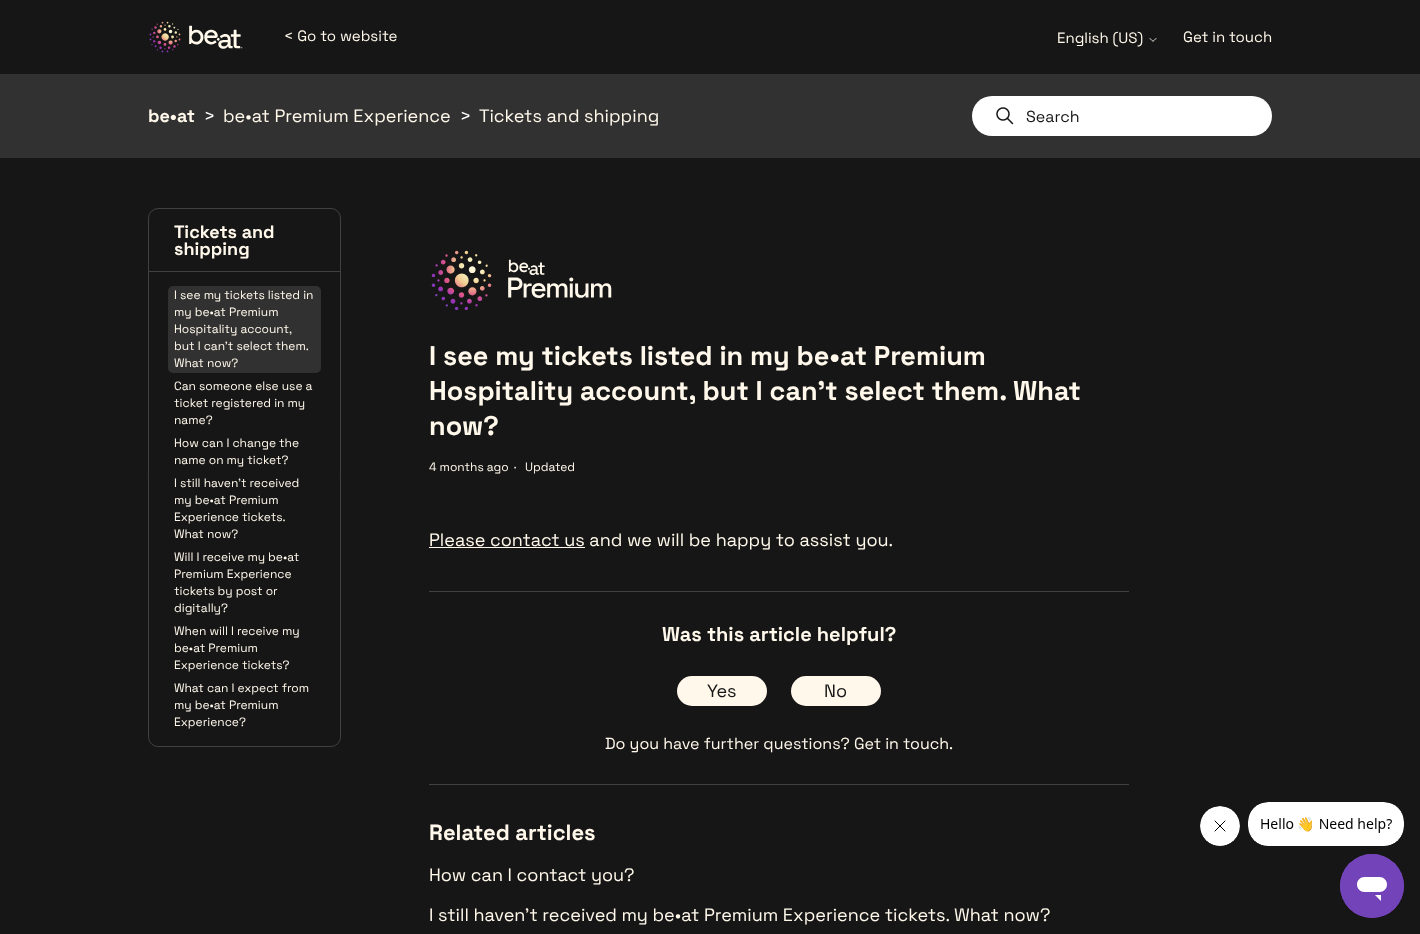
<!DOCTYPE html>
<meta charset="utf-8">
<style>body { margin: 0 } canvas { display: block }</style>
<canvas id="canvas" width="1420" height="934"></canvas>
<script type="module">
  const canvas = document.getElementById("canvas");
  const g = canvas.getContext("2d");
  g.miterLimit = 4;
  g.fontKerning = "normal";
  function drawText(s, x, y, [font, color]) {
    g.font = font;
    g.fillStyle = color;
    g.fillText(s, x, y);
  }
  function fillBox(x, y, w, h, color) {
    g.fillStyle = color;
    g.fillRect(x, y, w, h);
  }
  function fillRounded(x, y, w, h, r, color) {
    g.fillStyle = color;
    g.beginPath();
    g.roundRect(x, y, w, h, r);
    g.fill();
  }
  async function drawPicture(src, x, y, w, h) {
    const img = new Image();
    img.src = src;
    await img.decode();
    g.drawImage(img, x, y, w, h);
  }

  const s1 = ["15px Space Grotesk", "#FFF8EB"];
  const s2 = ["bold 18px Space Grotesk", "#FFF8EB"];
  const s3 = ["18px Space Grotesk", "#FFFFFF"];
  const s4 = ["18px Space Grotesk", "#FFF8EB"];
  const s5 = ["16px Space Grotesk", "#161616"];
  const s6 = ["12px Space Grotesk", "#FFF8EB"];
  const s7 = ["bold 27px Space Grotesk", "#FFF8EB"];
  const s8 = ["bold 20px Space Grotesk", "#FFF8EB"];
  const s9 = ["18px Space Grotesk", "#161616"];
  const s10 = ["16px Space Grotesk", "#FFF8EB"];
  const s11 = ["bold 22px Space Grotesk", "#FFF8EB"];

  fillBox(0, 0, 1420, 934, "#161616");
  await drawPicture("pic1.png", 149, 21, 94, 32);
  drawText("< Go to website", 284, 41, s1);
  drawText("English (US)", 1057, 43, s1);
  g.beginPath();
  g.moveTo(1150, 38.5);
  g.bezierCurveTo(1153.5, 42, 1152.5, 42, 1156, 38.5);
  g.strokeStyle = "#FFF8EB";
  g.lineCap = "round";
  g.stroke();
  drawText("Get in touch", 1183, 42, s1);
  fillBox(0, 74, 1420, 84, "#313131");
  drawText("be•at", 148, 122, s2);
  drawText(">", 204, 122, s3);
  drawText("be•at Premium Experience", 223, 122, s4);
  drawText(">", 460, 122, s3);
  drawText("Tickets and shipping", 479, 122, s4);
  fillRounded(972, 96, 300, 40, 20, "#FFFFFF");
  await drawPicture("pic2.png", 996, 107, 18, 18);
  drawText("Search", 1026, 122, s5);
  g.beginPath();
  g.roundRect(148.5, 208.5, 192, 538, 9.5);
  g.strokeStyle = "#424140";
  g.stroke();
  fillBox(149, 271, 191, 1, "#424140");
  drawText("Tickets and", 174, 238, s2);
  drawText("shipping", 174, 255, s2);
  fillRounded(168, 286, 153, 87, 5, "#313131");
  drawText("I see my tickets listed in", 174, 299, s6);
  drawText("my be•at Premium", 174, 316, s6);
  drawText("Hospitality account,", 174, 333, s6);
  drawText("but I can't select them.", 174, 350, s6);
  drawText("What now?", 174, 367, s6);
  drawText("Can someone else use a", 174, 390, s6);
  drawText("ticket registered in my", 174, 407, s6);
  drawText("name?", 174, 424, s6);
  drawText("How can I change the", 174, 447, s6);
  drawText("name on my ticket?", 174, 464, s6);
  drawText("I still haven't received", 174, 487, s6);
  drawText("my be•at Premium", 174, 504, s6);
  drawText("Experience tickets.", 174, 521, s6);
  drawText("What now?", 174, 538, s6);
  drawText("Will I receive my be•at", 174, 561, s6);
  drawText("Premium Experience", 174, 578, s6);
  drawText("tickets by post or", 174, 595, s6);
  drawText("digitally?", 174, 612, s6);
  drawText("When will I receive my", 174, 635, s6);
  drawText("be•at Premium", 174, 652, s6);
  drawText("Experience tickets?", 174, 669, s6);
  drawText("What can I expect from", 174, 692, s6);
  drawText("my be•at Premium", 174, 709, s6);
  drawText("Experience?", 174, 726, s6);
  await drawPicture("pic3.png", 431, 250, 181, 60);
  drawText("I see my tickets listed in my be•at Premium", 429, 365, s7);
  drawText("Hospitality account, but I can't select them. What", 429, 400, s7);
  drawText("now?", 429, 435, s7);
  drawText("4 months ago", 429, 471, s6);
  drawText("·", 514, 471, s6);
  drawText("Updated", 525, 471, s6);
  fillBox(429, 547, 156, 1, "#FFF8EB");
  drawText("Please contact us and we will be happy to assist you.", 429, 546, s4);
  fillBox(429, 591, 700, 1, "#424140");
  fillBox(429, 784, 700, 1, "#424140");
  drawText("Was this article helpful?", 662, 641, s8);
  fillRounded(677, 676, 90, 30, 15, "#FFF8EB");
  drawText("Yes", 707, 697, s9);
  fillRounded(791, 676, 90, 30, 15, "#FFF8EB");
  drawText("No", 824, 697, s9);
  drawText("Do you have further questions? Get in touch.", 605, 749, s10);
  drawText("Related articles", 429, 840, s11);
  drawText("How can I contact you?", 429, 881, s4);
  drawText("I still haven't received my be•at Premium Experience tickets. What now?", 429, 921, s4);
  await drawPicture("pic4.png", 1200, 806, 40, 40);
  await drawPicture("pic5.png", 1248, 802, 156, 44);
  await drawPicture("pic6.png", 1340, 854, 64, 64);
</script>
